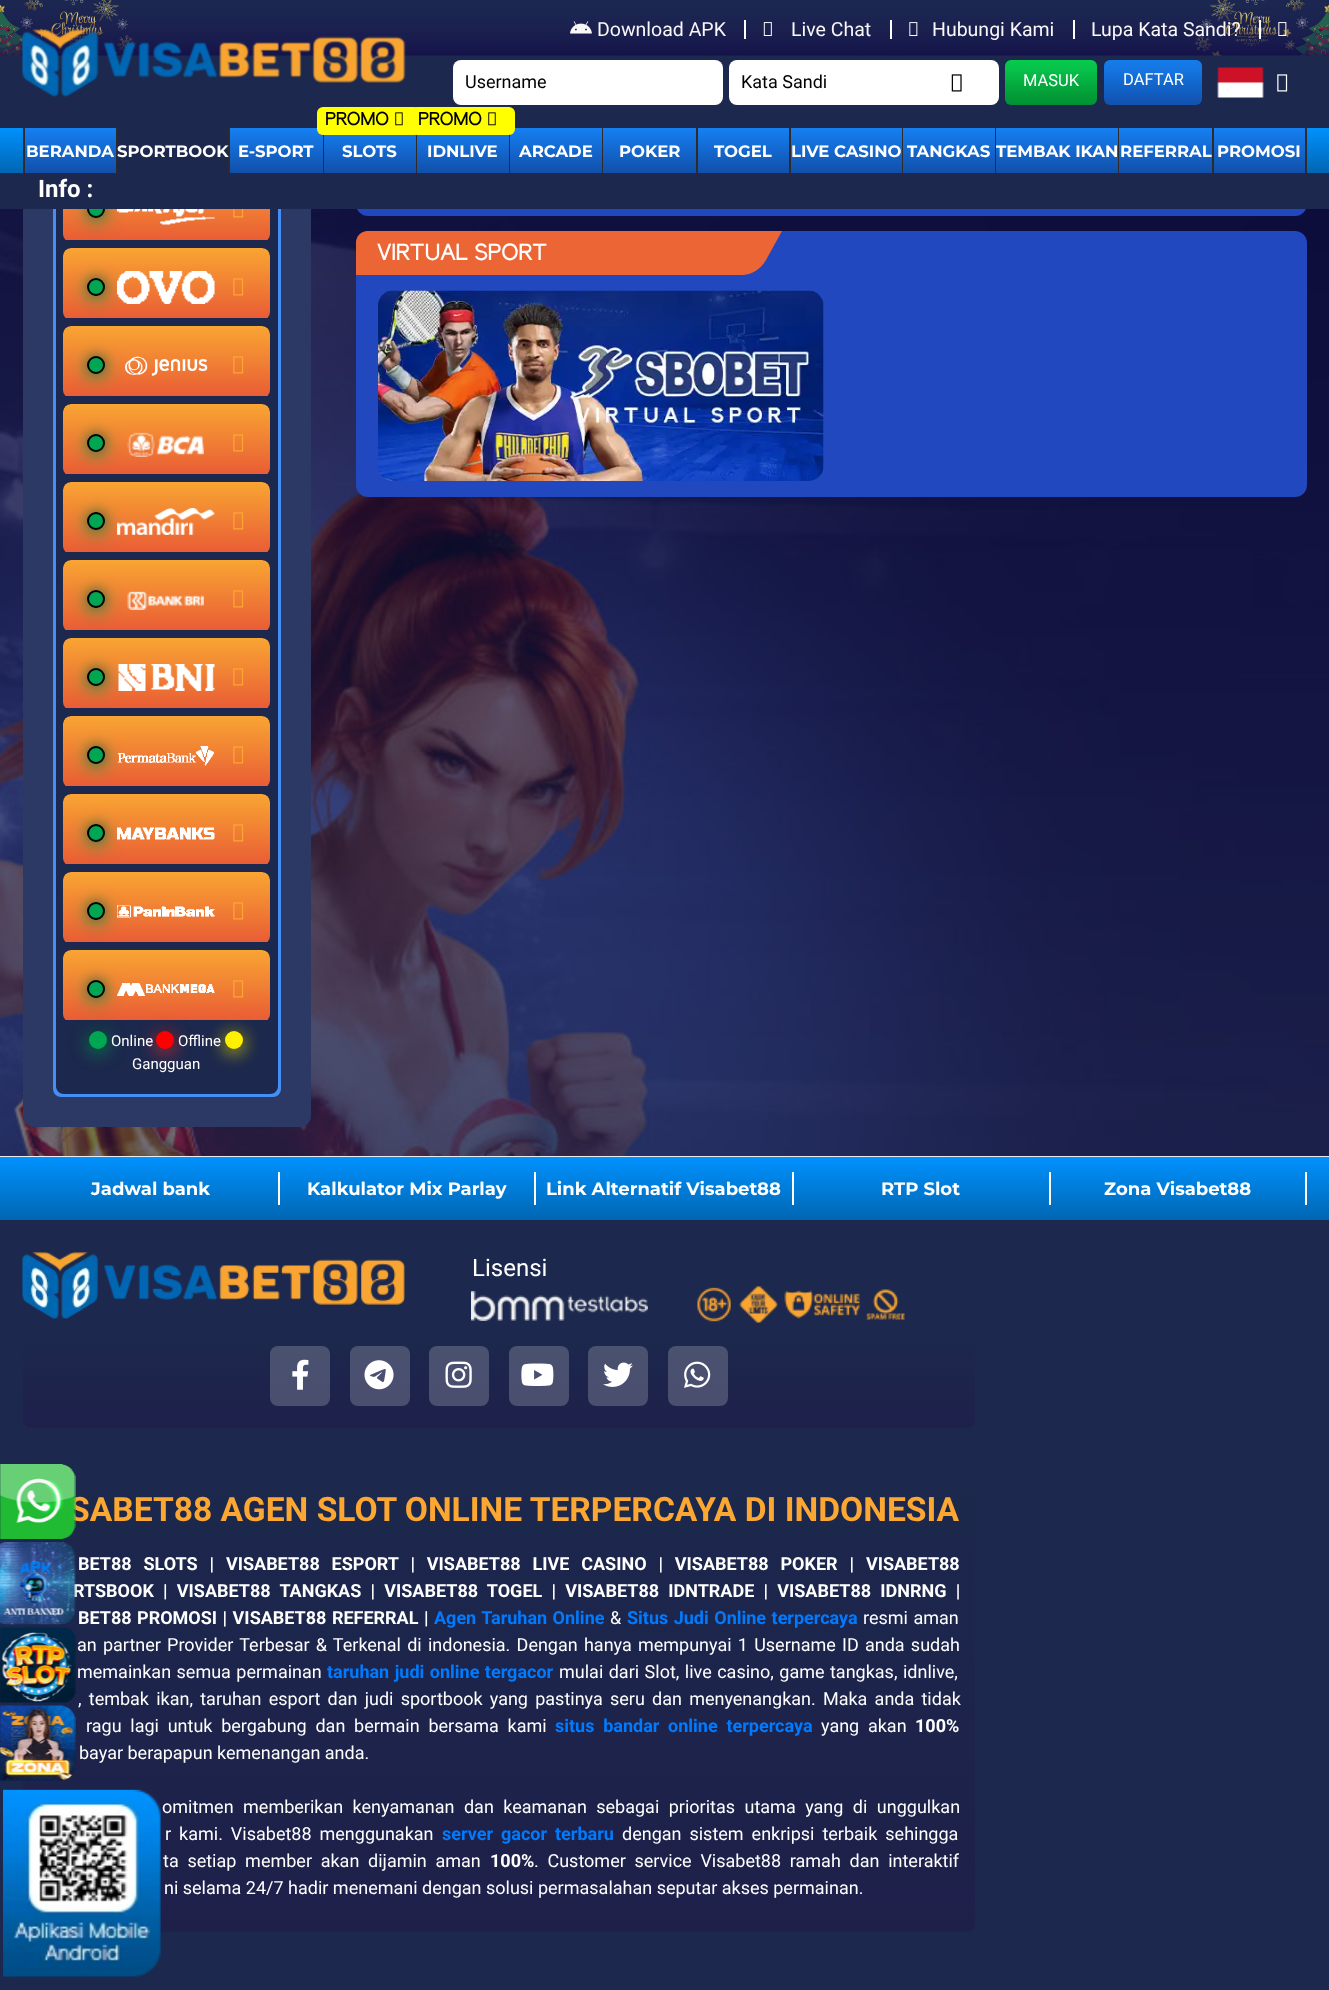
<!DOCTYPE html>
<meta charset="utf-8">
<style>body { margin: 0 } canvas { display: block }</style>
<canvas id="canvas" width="1329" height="1990"></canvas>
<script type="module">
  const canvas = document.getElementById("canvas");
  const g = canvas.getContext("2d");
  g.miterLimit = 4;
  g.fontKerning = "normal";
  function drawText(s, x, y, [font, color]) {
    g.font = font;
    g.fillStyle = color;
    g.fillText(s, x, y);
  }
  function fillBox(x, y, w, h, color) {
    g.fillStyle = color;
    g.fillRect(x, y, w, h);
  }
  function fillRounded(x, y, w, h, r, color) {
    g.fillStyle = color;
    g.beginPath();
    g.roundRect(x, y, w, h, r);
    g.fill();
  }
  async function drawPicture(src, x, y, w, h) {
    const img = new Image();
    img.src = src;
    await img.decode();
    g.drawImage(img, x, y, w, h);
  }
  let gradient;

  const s1 = ["19.5px Roboto", "#F9F7F8"];
  const s2 = ["18px Roboto", "#000000"];
  const s3 = ["16.5px Roboto", "#FFFFFF"];
  const s4 = ["bold 16.5px Montserrat", "#FFFFFF"];
  const s5 = ["bold 18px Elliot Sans", "#000000"];
  const s6 = ["bold 24px Roboto", "#FFFFFF"];
  const s7 = ["bold 22.5px Elliot Sans", "#FFFFFF"];
  const s8 = ["15px Roboto", "#FFFFFF"];
  const s9 = ["bold 18px Montserrat", "#FFFFFF"];
  const s10 = ["24px Roboto", "#FFFFFF"];
  const s11 = ["bold 33.6px Roboto", "#FBA732"];
  const s12 = ["bold 18px Roboto", "#FFFFFF"];
  const s13 = ["bold 18px Roboto", "#007BFF"];
  const s14 = ["18px Roboto", "#FFFFFF"];

  fillBox(0, 0, 1329, 1990, "#EEEDED");
  await drawPicture("pic11.png", 0, 209, 1329, 947);
  fillRounded(356, -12, 951, 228, 12, "#2248BF");
  fillRounded(23, -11, 288, 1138, 11, "#2B3964");
  fillRounded(53, -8, 228, 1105, 8, "#448EF6");
  g.fillStyle = "#1C284D";
  g.beginPath();
  g.moveTo(56, -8);
  g.lineTo(278, -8);
  g.lineTo(278, 1086);
  g.bezierCurveTo(278, 1090.5, 274.5, 1094, 270, 1094);
  g.lineTo(64, 1094);
  g.bezierCurveTo(59.5, 1094, 56, 1090.5, 56, 1086);
  g.closePath();
  g.fill();
  fillBox(0, 0, 1329, 128, "#1C284D");
  await drawPicture("pic1.png", 0, 0, 1329, 56);
  await drawPicture("pic2.png", 22, 29, 384, 68);
  await drawPicture("pic3.png", 570, 21, 22, 13);
  drawText("Download APK", 597, 36, s1);
  fillBox(744, 20, 2, 19, "#FFFFFF");
  await drawPicture("pic4.png", 763, 22, 9, 14);
  drawText("Live Chat", 791, 36, s1);
  fillBox(890, 20, 2, 19, "#FFFFFF");
  await drawPicture("pic5.png", 909, 22, 9, 14);
  drawText("Hubungi Kami", 932, 36, s1);
  fillBox(1073, 20, 2, 19, "#FFFFFF");
  drawText("Lupa Kata Sandi?", 1091, 36, s1);
  fillBox(1259, 20, 2, 19, "#FFFFFF");
  await drawPicture("pic6.png", 1278, 22, 9, 14);
  fillRounded(453, 60, 270, 45, 8, "#FFFFFF");
  drawText("Username", 465, 88, s2);
  fillRounded(729, 60, 270, 45, 8, "#FFFFFF");
  drawText("Kata Sandi", 741, 88, s2);
  await drawPicture("pic7.png", 951, 74, 11, 18);
  gradient = g.createLinearGradient(1051, 60, 1051, 105);
  gradient.addColorStop(0, "#08CA4D");
  gradient.addColorStop(0.09, "#06C74A");
  gradient.addColorStop(0.22, "#08C14A");
  gradient.addColorStop(0.3, "#04BB45");
  gradient.addColorStop(0.35, "#06B846");
  gradient.addColorStop(0.74, "#039E38");
  gradient.addColorStop(1, "#009134");
  g.fillStyle = gradient;
  g.beginPath();
  g.roundRect(1005, 60, 92, 45, 6);
  g.fill();
  drawText("MASUK", 1023, 86, s3);
  gradient = g.createLinearGradient(1153, 60, 1153, 105);
  gradient.addColorStop(0, "#147CEB");
  gradient.addColorStop(0.25, "#1574E0");
  gradient.addColorStop(0.35, "#136ED7");
  gradient.addColorStop(0.8, "#125ABC");
  gradient.addColorStop(0.95, "#1253AF");
  gradient.addColorStop(1, "#1253AF");
  g.fillStyle = gradient;
  g.beginPath();
  g.roundRect(1104, 60, 98, 45, 6);
  g.fill();
  drawText("DAFTAR", 1123, 85, s3);
  await drawPicture("pic8.png", 1217, 67, 47, 31);
  await drawPicture("pic9.png", 1277, 74, 11, 18);
  g.save();
  g.beginPath();
  g.roundRect(63, 170, 207, 72, 8);
  g.clip();
  gradient = g.createLinearGradient(167, 170, 167, 240);
  gradient.addColorStop(0, "#F9A533");
  gradient.addColorStop(1, "#E95D35");
  g.fillStyle = gradient;
  g.beginPath();
  g.roundRect(63, 170, 207, 70, [8, 8, 0, 0]);
  g.fill();
  g.restore();
  gradient = g.createLinearGradient(665, 127, 665, 173);
  gradient.addColorStop(0, "#0092FF");
  gradient.addColorStop(1, "#0066B2");
  g.fillStyle = gradient;
  g.fillRect(0, 128, 1329, 45);
  gradient = g.createLinearGradient(70, 128, 70, 173);
  gradient.addColorStop(0, "#1680F2");
  gradient.addColorStop(1, "#114FAA");
  g.fillStyle = gradient;
  g.fillRect(25, 128, 91, 45);
  fillBox(116, 128, 1, 45, "#2F2B2B");
  fillBox(23, 128, 2, 45, "#2F2B2B");
  drawText("BERANDA", 26, 157, s4);
  fillBox(117, 128, 111, 45, "#1C284D");
  fillBox(228, 128, 2, 45, "#2F2B2B");
  drawText("SPORTBOOK", 117, 157, s4);
  gradient = g.createLinearGradient(276, 128, 276, 173);
  gradient.addColorStop(0, "#1680F2");
  gradient.addColorStop(1, "#114FAA");
  g.fillStyle = gradient;
  g.fillRect(230, 128, 93, 45);
  fillBox(323, 128, 1, 45, "#2F2B2B");
  drawText("E-SPORT", 238, 157, s4);
  gradient = g.createLinearGradient(370, 128, 370, 173);
  gradient.addColorStop(0, "#1680F2");
  gradient.addColorStop(1, "#114FAA");
  g.fillStyle = gradient;
  g.fillRect(324, 134, 92, 39);
  fillBox(416, 128, 1, 45, "#2F2B2B");
  fillRounded(317, 107, 103, 28, 6, "#FFFF00");
  drawText("PROMO", 325, 125, s5);
  await drawPicture("pic10.png", 395, 112, 8, 14);
  drawText("SLOTS", 342, 157, s4);
  gradient = g.createLinearGradient(463, 128, 463, 173);
  gradient.addColorStop(0, "#1680F2");
  gradient.addColorStop(1, "#114FAA");
  g.fillStyle = gradient;
  g.fillRect(417, 135, 92, 38);
  fillBox(509, 128, 1, 45, "#2F2B2B");
  gradient = g.createLinearGradient(556, 128, 556, 173);
  gradient.addColorStop(0, "#1680F2");
  gradient.addColorStop(1, "#114FAA");
  g.fillStyle = gradient;
  g.fillRect(510, 128, 92, 45);
  fillRounded(411, 107, 104, 28, 6, "#FFFF00");
  drawText("PROMO", 418, 125, s5);
  await drawPicture("pic10.png", 488, 112, 8, 14);
  drawText("IDNLIVE", 427, 157, s4);
  fillBox(602, 128, 1, 45, "#2F2B2B");
  drawText("ARCADE", 519, 157, s4);
  gradient = g.createLinearGradient(650, 128, 650, 173);
  gradient.addColorStop(0, "#1680F2");
  gradient.addColorStop(1, "#114FAA");
  g.fillStyle = gradient;
  g.fillRect(603, 128, 93, 45);
  fillBox(696, 128, 2, 45, "#2F2B2B");
  drawText("POKER", 619, 157, s4);
  gradient = g.createLinearGradient(743, 128, 743, 173);
  gradient.addColorStop(0, "#1680F2");
  gradient.addColorStop(1, "#114FAA");
  g.fillStyle = gradient;
  g.fillRect(698, 128, 91, 45);
  fillBox(789, 128, 2, 45, "#2F2B2B");
  drawText("TOGEL", 714, 157, s4);
  gradient = g.createLinearGradient(846, 128, 846, 173);
  gradient.addColorStop(0, "#1680F2");
  gradient.addColorStop(1, "#114FAA");
  g.fillStyle = gradient;
  g.fillRect(791, 128, 111, 45);
  fillBox(902, 128, 1, 45, "#2F2B2B");
  drawText("LIVE CASINO", 791, 157, s4);
  gradient = g.createLinearGradient(949, 128, 949, 173);
  gradient.addColorStop(0, "#1680F2");
  gradient.addColorStop(1, "#114FAA");
  g.fillStyle = gradient;
  g.fillRect(903, 128, 92, 45);
  fillBox(995, 128, 1, 45, "#2F2B2B");
  drawText("TANGKAS", 907, 157, s4);
  gradient = g.createLinearGradient(1057, 128, 1057, 173);
  gradient.addColorStop(0, "#1680F2");
  gradient.addColorStop(1, "#114FAA");
  g.fillStyle = gradient;
  g.fillRect(996, 128, 122, 45);
  fillBox(1118, 128, 1, 45, "#2F2B2B");
  drawText("TEMBAK IKAN", 996, 157, s4);
  gradient = g.createLinearGradient(1166, 128, 1166, 173);
  gradient.addColorStop(0, "#1680F2");
  gradient.addColorStop(1, "#114FAA");
  g.fillStyle = gradient;
  g.fillRect(1119, 128, 93, 45);
  fillBox(1212, 128, 2, 45, "#2F2B2B");
  drawText("REFERRAL", 1120, 157, s4);
  gradient = g.createLinearGradient(1259, 128, 1259, 173);
  gradient.addColorStop(0, "#1680F2");
  gradient.addColorStop(1, "#114FAA");
  g.fillStyle = gradient;
  g.fillRect(1214, 128, 91, 45);
  fillBox(1305, 128, 2, 45, "#2F2B2B");
  drawText("PROMOSI", 1217, 157, s4);
  await drawPicture("pic13.png", 117, 209, 98, 16);
  g.fillStyle = "#00A651";
  g.filter = "blur(9px)";
  g.beginPath();
  g.roundRect(87, 203, 18, 18, 9);
  g.fill();
  g.filter = "none";
  g.fillStyle = "rgba(0, 0, 0, 0.2)";
  g.filter = "blur(5px)";
  g.beginPath();
  g.roundRect(86, 197, 21, 21, 10.5);
  g.fill();
  g.filter = "none";
  g.fillStyle = "#00A651";
  g.beginPath();
  g.arc(96, 209, 8, 0, Math.PI * 2);
  g.fill();
  g.strokeStyle = "#000000";
  g.lineWidth = 2;
  g.stroke();
  fillBox(0, 173, 1329, 36, "#1C284D");
  drawText("Info :", 38, 197, s6);
  fillRounded(356, 231, 951, 266, 12, "#2248BF");
  g.fillStyle = "#EB6535";
  g.beginPath();
  g.moveTo(368, 231);
  g.lineTo(782, 231);
  g.lineTo(766, 260);
  g.bezierCurveTo(761, 269, 751, 275, 742, 275);
  g.lineTo(356, 275);
  g.lineTo(356, 243);
  g.bezierCurveTo(356, 236, 361, 231, 368, 231);
  g.closePath();
  g.fill();
  drawText("VIRTUAL SPORT", 377, 260, s7);
  await drawPicture("pic12.png", 378, 290, 446, 191);
  await drawPicture("pic14.png", 233, 209, 11, 9);
  g.save();
  g.beginPath();
  g.roundRect(63, 248, 207, 72, 8);
  g.clip();
  gradient = g.createLinearGradient(167, 248, 167, 318);
  gradient.addColorStop(0, "#F9A533");
  gradient.addColorStop(1, "#E95D35");
  g.fillStyle = gradient;
  g.beginPath();
  g.roundRect(63, 248, 207, 70, [8, 8, 0, 0]);
  g.fill();
  g.restore();
  await drawPicture("pic15.png", 117, 271, 98, 33);
  g.fillStyle = "#00A651";
  g.filter = "blur(9px)";
  g.beginPath();
  g.roundRect(87, 281, 18, 18, 9);
  g.fill();
  g.filter = "none";
  g.fillStyle = "rgba(0, 0, 0, 0.2)";
  g.filter = "blur(5px)";
  g.beginPath();
  g.roundRect(86, 275, 21, 21, 10.5);
  g.fill();
  g.filter = "none";
  g.fillStyle = "#00A651";
  g.beginPath();
  g.arc(96, 287, 8, 0, Math.PI * 2);
  g.fill();
  g.stroke();
  await drawPicture("pic16.png", 233, 278, 11, 18);
  g.save();
  g.beginPath();
  g.roundRect(63, 326, 207, 72, 8);
  g.clip();
  gradient = g.createLinearGradient(167, 326, 167, 396);
  gradient.addColorStop(0, "#F9A533");
  gradient.addColorStop(1, "#E95D35");
  g.fillStyle = gradient;
  g.beginPath();
  g.roundRect(63, 326, 207, 70, [8, 8, 0, 0]);
  g.fill();
  g.restore();
  await drawPicture("pic17.png", 125, 356, 83, 20);
  g.filter = "blur(9px)";
  g.beginPath();
  g.roundRect(87, 359, 18, 18, 9);
  g.fill();
  g.filter = "none";
  g.fillStyle = "rgba(0, 0, 0, 0.2)";
  g.filter = "blur(5px)";
  g.beginPath();
  g.roundRect(86, 353, 21, 21, 10.5);
  g.fill();
  g.filter = "none";
  g.fillStyle = "#00A651";
  g.beginPath();
  g.arc(96, 365, 8, 0, Math.PI * 2);
  g.fill();
  g.stroke();
  await drawPicture("pic16.png", 233, 356, 11, 18);
  g.save();
  g.beginPath();
  g.roundRect(63, 404, 207, 72, 8);
  g.clip();
  gradient = g.createLinearGradient(167, 404, 167, 474);
  gradient.addColorStop(0, "#F9A533");
  gradient.addColorStop(1, "#E95D35");
  g.fillStyle = gradient;
  g.beginPath();
  g.roundRect(63, 404, 207, 70, [8, 8, 0, 0]);
  g.fill();
  g.restore();
  await drawPicture("pic18.png", 127, 432, 77, 25);
  g.filter = "blur(9px)";
  g.beginPath();
  g.roundRect(87, 437, 18, 18, 9);
  g.fill();
  g.filter = "none";
  g.fillStyle = "rgba(0, 0, 0, 0.2)";
  g.filter = "blur(5px)";
  g.beginPath();
  g.roundRect(86, 431, 21, 21, 10.5);
  g.fill();
  g.filter = "none";
  g.fillStyle = "#00A651";
  g.beginPath();
  g.arc(96, 443, 8, 0, Math.PI * 2);
  g.fill();
  g.stroke();
  await drawPicture("pic16.png", 233, 434, 11, 18);
  g.save();
  g.beginPath();
  g.roundRect(63, 482, 207, 72, 8);
  g.clip();
  gradient = g.createLinearGradient(167, 482, 167, 552);
  gradient.addColorStop(0, "#F9A533");
  gradient.addColorStop(1, "#E95D35");
  g.fillStyle = gradient;
  g.beginPath();
  g.roundRect(63, 482, 207, 70, [8, 8, 0, 0]);
  g.fill();
  g.restore();
  await drawPicture("pic19.png", 117, 508, 98, 27);
  g.filter = "blur(9px)";
  g.beginPath();
  g.roundRect(87, 515, 18, 18, 9);
  g.fill();
  g.filter = "none";
  g.fillStyle = "rgba(0, 0, 0, 0.2)";
  g.filter = "blur(5px)";
  g.beginPath();
  g.roundRect(86, 509, 21, 21, 10.5);
  g.fill();
  g.filter = "none";
  g.fillStyle = "#00A651";
  g.beginPath();
  g.arc(96, 521, 8, 0, Math.PI * 2);
  g.fill();
  g.stroke();
  await drawPicture("pic16.png", 233, 512, 11, 18);
  g.save();
  g.beginPath();
  g.roundRect(63, 560, 207, 72, 8);
  g.clip();
  gradient = g.createLinearGradient(167, 560, 167, 630);
  gradient.addColorStop(0, "#F9A533");
  gradient.addColorStop(1, "#E95D35");
  g.fillStyle = gradient;
  g.beginPath();
  g.roundRect(63, 560, 207, 70, [8, 8, 0, 0]);
  g.fill();
  g.restore();
  await drawPicture("pic20.png", 127, 591, 77, 19);
  g.filter = "blur(9px)";
  g.beginPath();
  g.roundRect(87, 593, 18, 18, 9);
  g.fill();
  g.filter = "none";
  g.fillStyle = "rgba(0, 0, 0, 0.2)";
  g.filter = "blur(5px)";
  g.beginPath();
  g.roundRect(86, 587, 21, 21, 10.5);
  g.fill();
  g.filter = "none";
  g.fillStyle = "#00A651";
  g.beginPath();
  g.arc(96, 599, 8, 0, Math.PI * 2);
  g.fill();
  g.stroke();
  await drawPicture("pic16.png", 233, 590, 11, 18);
  g.save();
  g.beginPath();
  g.roundRect(63, 638, 207, 72, 8);
  g.clip();
  gradient = g.createLinearGradient(167, 638, 167, 708);
  gradient.addColorStop(0, "#F9A533");
  gradient.addColorStop(1, "#E95D35");
  g.fillStyle = gradient;
  g.beginPath();
  g.roundRect(63, 638, 207, 70, [8, 8, 0, 0]);
  g.fill();
  g.restore();
  await drawPicture("pic21.png", 118, 664, 97, 27);
  g.filter = "blur(9px)";
  g.beginPath();
  g.roundRect(87, 671, 18, 18, 9);
  g.fill();
  g.filter = "none";
  g.fillStyle = "rgba(0, 0, 0, 0.2)";
  g.filter = "blur(5px)";
  g.beginPath();
  g.roundRect(86, 665, 21, 21, 10.5);
  g.fill();
  g.filter = "none";
  g.fillStyle = "#00A651";
  g.beginPath();
  g.arc(96, 677, 8, 0, Math.PI * 2);
  g.fill();
  g.stroke();
  await drawPicture("pic16.png", 233, 668, 11, 18);
  g.save();
  g.beginPath();
  g.roundRect(63, 716, 207, 72, 8);
  g.clip();
  gradient = g.createLinearGradient(167, 716, 167, 786);
  gradient.addColorStop(0, "#F9A533");
  gradient.addColorStop(1, "#E95D35");
  g.fillStyle = gradient;
  g.beginPath();
  g.roundRect(63, 716, 207, 70, [8, 8, 0, 0]);
  g.fill();
  g.restore();
  await drawPicture("pic22.png", 118, 746, 96, 20);
  g.filter = "blur(9px)";
  g.beginPath();
  g.roundRect(87, 749, 18, 18, 9);
  g.fill();
  g.filter = "none";
  g.fillStyle = "rgba(0, 0, 0, 0.2)";
  g.filter = "blur(5px)";
  g.beginPath();
  g.roundRect(86, 743, 21, 21, 10.5);
  g.fill();
  g.filter = "none";
  g.fillStyle = "#00A651";
  g.beginPath();
  g.arc(96, 755, 8, 0, Math.PI * 2);
  g.fill();
  g.stroke();
  await drawPicture("pic16.png", 233, 746, 11, 18);
  g.save();
  g.beginPath();
  g.roundRect(63, 794, 207, 72, 8);
  g.clip();
  gradient = g.createLinearGradient(167, 794, 167, 864);
  gradient.addColorStop(0, "#F9A533");
  gradient.addColorStop(1, "#E95D35");
  g.fillStyle = gradient;
  g.beginPath();
  g.roundRect(63, 794, 207, 70, [8, 8, 0, 0]);
  g.fill();
  g.restore();
  await drawPicture("pic23.png", 117, 827, 98, 13);
  g.filter = "blur(9px)";
  g.beginPath();
  g.roundRect(87, 827, 18, 18, 9);
  g.fill();
  g.filter = "none";
  g.fillStyle = "rgba(0, 0, 0, 0.2)";
  g.filter = "blur(5px)";
  g.beginPath();
  g.roundRect(86, 821, 21, 21, 10.5);
  g.fill();
  g.filter = "none";
  g.fillStyle = "#00A651";
  g.beginPath();
  g.arc(96, 833, 8, 0, Math.PI * 2);
  g.fill();
  g.stroke();
  await drawPicture("pic16.png", 233, 824, 11, 18);
  g.save();
  g.beginPath();
  g.roundRect(63, 872, 207, 72, 8);
  g.clip();
  gradient = g.createLinearGradient(167, 872, 167, 942);
  gradient.addColorStop(0, "#F9A533");
  gradient.addColorStop(1, "#E95D35");
  g.fillStyle = gradient;
  g.beginPath();
  g.roundRect(63, 872, 207, 70, [8, 8, 0, 0]);
  g.fill();
  g.restore();
  await drawPicture("pic24.png", 117, 905, 98, 13);
  g.filter = "blur(9px)";
  g.beginPath();
  g.roundRect(87, 905, 18, 18, 9);
  g.fill();
  g.filter = "none";
  g.fillStyle = "rgba(0, 0, 0, 0.2)";
  g.filter = "blur(5px)";
  g.beginPath();
  g.roundRect(86, 899, 21, 21, 10.5);
  g.fill();
  g.filter = "none";
  g.fillStyle = "#00A651";
  g.beginPath();
  g.arc(96, 911, 8, 0, Math.PI * 2);
  g.fill();
  g.stroke();
  await drawPicture("pic16.png", 233, 902, 11, 18);
  g.save();
  g.beginPath();
  g.roundRect(63, 950, 207, 72, 8);
  g.clip();
  gradient = g.createLinearGradient(167, 950, 167, 1020);
  gradient.addColorStop(0, "#F9A533");
  gradient.addColorStop(1, "#E95D35");
  g.fillStyle = gradient;
  g.beginPath();
  g.roundRect(63, 950, 207, 70, [8, 8, 0, 0]);
  g.fill();
  g.restore();
  await drawPicture("pic25.png", 117, 983, 98, 13);
  g.filter = "blur(9px)";
  g.beginPath();
  g.roundRect(87, 983, 18, 18, 9);
  g.fill();
  g.filter = "none";
  g.fillStyle = "rgba(0, 0, 0, 0.2)";
  g.filter = "blur(5px)";
  g.beginPath();
  g.roundRect(86, 977, 21, 21, 10.5);
  g.fill();
  g.filter = "none";
  g.fillStyle = "#00A651";
  g.beginPath();
  g.arc(96, 989, 8, 0, Math.PI * 2);
  g.fill();
  g.stroke();
  await drawPicture("pic16.png", 233, 980, 11, 18);
  g.filter = "blur(9px)";
  g.beginPath();
  g.roundRect(89, 1034, 18, 18, 9);
  g.fill();
  g.filter = "none";
  g.fillStyle = "rgba(0, 0, 0, 0.2)";
  g.filter = "blur(5px)";
  g.beginPath();
  g.roundRect(87, 1028, 21, 21, 10.5);
  g.fill();
  g.filter = "none";
  g.fillStyle = "#00A651";
  g.beginPath();
  g.arc(98, 1040, 9, 0, Math.PI * 2);
  g.fill();
  g.fillStyle = "#FF3232";
  g.filter = "blur(9px)";
  g.beginPath();
  g.roundRect(156, 1034, 18, 18, 9);
  g.fill();
  g.filter = "none";
  g.fillStyle = "rgba(0, 0, 0, 0.2)";
  g.filter = "blur(5px)";
  g.beginPath();
  g.roundRect(155, 1028, 21, 21, 10.5);
  g.fill();
  g.filter = "none";
  g.fillStyle = "#FF0000";
  g.beginPath();
  g.arc(165, 1040, 9, 0, Math.PI * 2);
  g.fill();
  g.fillStyle = "#FFF000";
  g.filter = "blur(9px)";
  g.beginPath();
  g.roundRect(225, 1034, 18, 18, 9);
  g.fill();
  g.filter = "none";
  g.fillStyle = "rgba(0, 0, 0, 0.2)";
  g.filter = "blur(5px)";
  g.beginPath();
  g.roundRect(224, 1028, 21, 21, 10.5);
  g.fill();
  g.filter = "none";
  g.fillStyle = "#FFF000";
  g.beginPath();
  g.arc(234, 1040, 9, 0, Math.PI * 2);
  g.fill();
  drawText("Online", 111, 1046, s8);
  drawText("Offline", 178, 1046, s8);
  drawText("Gangguan", 132, 1069, s8);
  fillBox(0, 1220, 1329, 770, "#1C284D");
  gradient = g.createLinearGradient(665, 1157, 665, 1220);
  gradient.addColorStop(0, "#0092FF");
  gradient.addColorStop(1, "#0066B2");
  g.fillStyle = gradient;
  g.fillRect(0, 1157, 1329, 63);
  fillBox(278, 1172, 2, 33, "#FFFFFF");
  drawText("Jadwal bank", 91, 1195, s9);
  fillBox(534, 1172, 2, 33, "#FFFFFF");
  drawText("Kalkulator Mix Parlay", 307, 1195, s9);
  fillBox(792, 1172, 2, 33, "#FFFFFF");
  drawText("Link Alternatif Visabet88", 546, 1195, s9);
  fillBox(1049, 1172, 2, 33, "#FFFFFF");
  drawText("RTP Slot", 881, 1195, s9);
  fillBox(1305, 1172, 2, 33, "#FFFFFF");
  drawText("Zona Visabet88", 1104, 1195, s9);
  await drawPicture("pic26.png", 22, 1252, 383, 67);
  drawText("Lisensi", 472, 1276, s10);
  await drawPicture("pic27.png", 471, 1291, 177, 30);
  await drawPicture("pic28.png", 697, 1286, 208, 37);
  gradient = g.createLinearGradient(499, 1338, 499, 1428);
  gradient.addColorStop(0, "#1C284D");
  gradient.addColorStop(1, "#1E204B");
  g.fillStyle = gradient;
  g.beginPath();
  g.roundRect(23, 1338, 952, 90, 8);
  g.fill();
  fillRounded(270, 1346, 60, 60, 8, "rgba(255, 255, 255, 0.2)");
  await drawPicture("pic29.png", 292, 1359, 17, 31);
  fillRounded(350, 1346, 60, 60, 8, "rgba(255, 255, 255, 0.2)");
  await drawPicture("pic30.png", 364, 1360, 30, 30);
  fillRounded(429, 1346, 60, 60, 8, "rgba(255, 255, 255, 0.2)");
  await drawPicture("pic31.png", 445, 1361, 27, 27);
  fillRounded(509, 1346, 60, 60, 8, "rgba(255, 255, 255, 0.2)");
  await drawPicture("pic32.png", 521, 1363, 33, 23);
  fillRounded(588, 1346, 60, 60, 8, "rgba(255, 255, 255, 0.2)");
  await drawPicture("pic33.png", 603, 1362, 30, 25);
  fillRounded(668, 1346, 60, 60, 8, "rgba(255, 255, 255, 0.2)");
  await drawPicture("pic34.png", 684, 1361, 27, 27);
  gradient = g.createLinearGradient(499, 1476, 499, 1932);
  gradient.addColorStop(0, "#1C284D");
  gradient.addColorStop(1, "#1E204A");
  g.fillStyle = gradient;
  g.beginPath();
  g.roundRect(23, 1476, 952, 456, 8);
  g.fill();
  drawText("SABET88 AGEN SLOT ONLINE TERPERCAYA DI INDONESIA", 69, 1521, s11);
  await drawPicture("pic35.png", 0, 1464, 76, 75);
  g.wordSpacing = "4.75px";
  drawText("RTSBOOK | VISABET88 TANGKAS | VISABET88 TOGEL | VISABET88 IDNTRADE | VISABET88 IDNRNG |", 73, 1597, s12);
  await drawPicture("pic36.png", 0, 1542, 76, 83);
  await drawPicture("pic37.png", 0, 1627, 76, 76);
  await drawPicture("pic38.png", 0, 1705, 76, 76);
  g.wordSpacing = "7.4px";
  drawText("BET88 SLOTS | VISABET88 ESPORT | VISABET88 LIVE CASINO | VISABET88 POKER | VISABET88", 78, 1570, s12);
  g.wordSpacing = "1px";
  drawText("BET88 PROMOSI | VISABET88 REFERRAL |", 78, 1624, s12);
  drawText("Agen Taruhan Online", 434, 1624, s13);
  g.wordSpacing = "0px";
  drawText("&", 610, 1624, s14);
  g.wordSpacing = "1px";
  drawText("Situs Judi Online terpercaya", 627, 1624, s13);
  drawText("resmi aman", 863, 1624, s14);
  g.wordSpacing = "1.75px";
  drawText("an partner Provider Terbesar & Terkenal di indonesia. Dengan hanya mempunyai 1 Username ID anda sudah", 77, 1651, s14);
  g.wordSpacing = "1px";
  drawText("memainkan semua permainan", 77, 1678, s14);
  drawText("taruhan judi online tergacor", 327, 1678, s13);
  drawText("mulai dari Slot, live casino, game tangkas, idnlive,", 559, 1678, s14);
  g.wordSpacing = "2.75px";
  drawText(", tembak ikan, taruhan esport dan judi sportbook yang pastinya seru dan menyenangkan. Maka anda tidak", 78, 1705, s14);
  g.wordSpacing = "4.25px";
  drawText("ragu lagi untuk bergabung dan bermain bersama kami", 86, 1732, s14);
  drawText("situs bandar online terpercaya", 555, 1732, s13);
  drawText("yang akan", 821, 1732, s14);
  g.wordSpacing = "0px";
  drawText("100%", 915, 1732, s12);
  drawText("bayar berapapun kemenangan anda.", 79, 1759, s14);
  g.wordSpacing = "5px";
  drawText("omitmen memberikan kenyamanan dan keamanan sebagai prioritas utama yang di unggulkan", 162, 1813, s14);
  g.wordSpacing = "3.5px";
  drawText("r kami. Visabet88 menggunakan", 165, 1840, s14);
  drawText("server gacor terbaru", 442, 1840, s13);
  drawText("dengan sistem enkripsi terbaik sehingga", 622, 1840, s14);
  g.wordSpacing = "4.25px";
  drawText("ta setiap member akan dijamin aman", 163, 1867, s14);
  g.wordSpacing = "0px";
  drawText("100%", 490, 1867, s12);
  g.wordSpacing = "4.25px";
  drawText(". Customer service Visabet88 ramah dan interaktif", 534, 1867, s14);
  g.wordSpacing = "0px";
  drawText("ni selama 24/7 hadir menemani dengan solusi permasalahan seputar akses permainan.", 164, 1894, s14);
  await drawPicture("pic39.png", 3, 1789, 158, 188);
</script>
